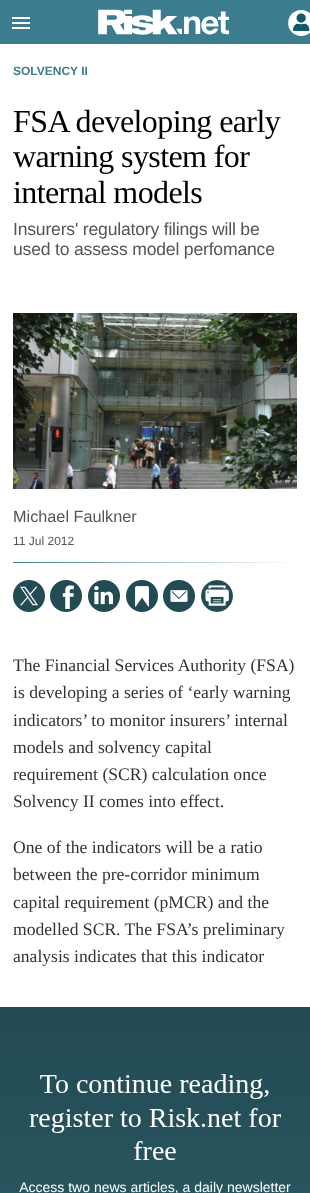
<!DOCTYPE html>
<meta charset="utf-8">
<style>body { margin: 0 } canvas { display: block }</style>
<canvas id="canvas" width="310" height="1193"></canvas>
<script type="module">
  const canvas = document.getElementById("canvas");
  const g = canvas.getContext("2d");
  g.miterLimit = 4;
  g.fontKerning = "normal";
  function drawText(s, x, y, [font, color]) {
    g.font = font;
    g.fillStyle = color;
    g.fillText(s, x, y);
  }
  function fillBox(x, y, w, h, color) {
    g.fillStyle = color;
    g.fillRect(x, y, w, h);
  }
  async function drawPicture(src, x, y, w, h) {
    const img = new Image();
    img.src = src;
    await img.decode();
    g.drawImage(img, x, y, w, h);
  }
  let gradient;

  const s1 = ["bold 12px Arimo", "#3B7C8E"];
  const s2 = ["32px Liberation Serif", "#000000"];
  const s3 = ["17.6px Arimo", "#555555"];
  const s4 = ["16.25px Arimo", "#555555"];
  const s5 = ["12px Arimo", "#555555"];
  const s6 = ["17.6px Liberation Serif", "#333333"];

  fillBox(0, 0, 310, 1193, "#FFFFFF");
  fillBox(0, 0, 310, 44, "#3B7C8E");
  fillBox(12, 22, 18, 2, "#FFFFFF");
  fillBox(12, 17, 18, 2, "#FFFFFF");
  fillBox(12, 27, 18, 2, "#FFFFFF");
  await drawPicture("pic1.png", 98, 9, 132, 26);
  await drawPicture("pic2.png", 288, 10, 22, 26);
  drawText("SOLVENCY II", 13, 75, s1);
  g.letterSpacing = "-0.6px";
  drawText("FSA developing early", 13, 132, s2);
  drawText("warning system for", 13, 167, s2);
  drawText("internal models", 13, 203, s2);
  g.letterSpacing = "-0.2px";
  drawText("Insurers' regulatory filings will be", 13, 235, s3);
  drawText("used to assess model perfomance", 13, 255, s3);
  await drawPicture("pic3.png", 13, 313, 284, 176);
  g.letterSpacing = "0px";
  drawText("Michael Faulkner", 13, 522, s4);
  drawText("11 Jul 2012", 13, 545, s5);
  gradient = g.createLinearGradient(13, 563, 297, 563);
  gradient.addColorStop(0, "#3B7C8E");
  gradient.addColorStop(1, "#FFFFFF");
  g.fillStyle = gradient;
  g.fillRect(13, 562, 284, 1);
  await drawPicture("pic4.png", 13, 580, 32, 32);
  await drawPicture("pic5.png", 50, 580, 32, 32);
  await drawPicture("pic6.png", 88, 580, 32, 32);
  await drawPicture("pic7.png", 126, 580, 32, 32);
  await drawPicture("pic8.png", 163, 580, 32, 32);
  await drawPicture("pic9.png", 201, 580, 32, 32);
  drawText("The Financial Services Authority (FSA)", 13, 671, s6);
  drawText("is developing a series of ‘early warning", 13, 698, s6);
  drawText("indicators’ to monitor insurers’ internal", 13, 726, s6);
  drawText("models and solvency capital", 13, 753, s6);
  drawText("requirement (SCR) calculation once", 13, 780, s6);
  drawText("Solvency II comes into effect.", 13, 807, s6);
  drawText("One of the indicators will be a ratio", 13, 853, s6);
  drawText("between the pre-corridor minimum", 13, 880, s6);
  drawText("capital requirement (pMCR) and the", 13, 908, s6);
  drawText("modelled SCR. The FSA’s preliminary", 13, 935, s6);
  drawText("analysis indicates that this indicator", 13, 962, s6);
  gradient = g.createLinearGradient(155, 1007, 155, 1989);
  gradient.addColorStop(0, "#234B53");
  gradient.addColorStop(1, "#3B7C8E");
  g.fillStyle = gradient;
  g.fillRect(0, 1007, 310, 186);
  await drawPicture("pic10.png", 19, 1074, 272, 119);
</script>
